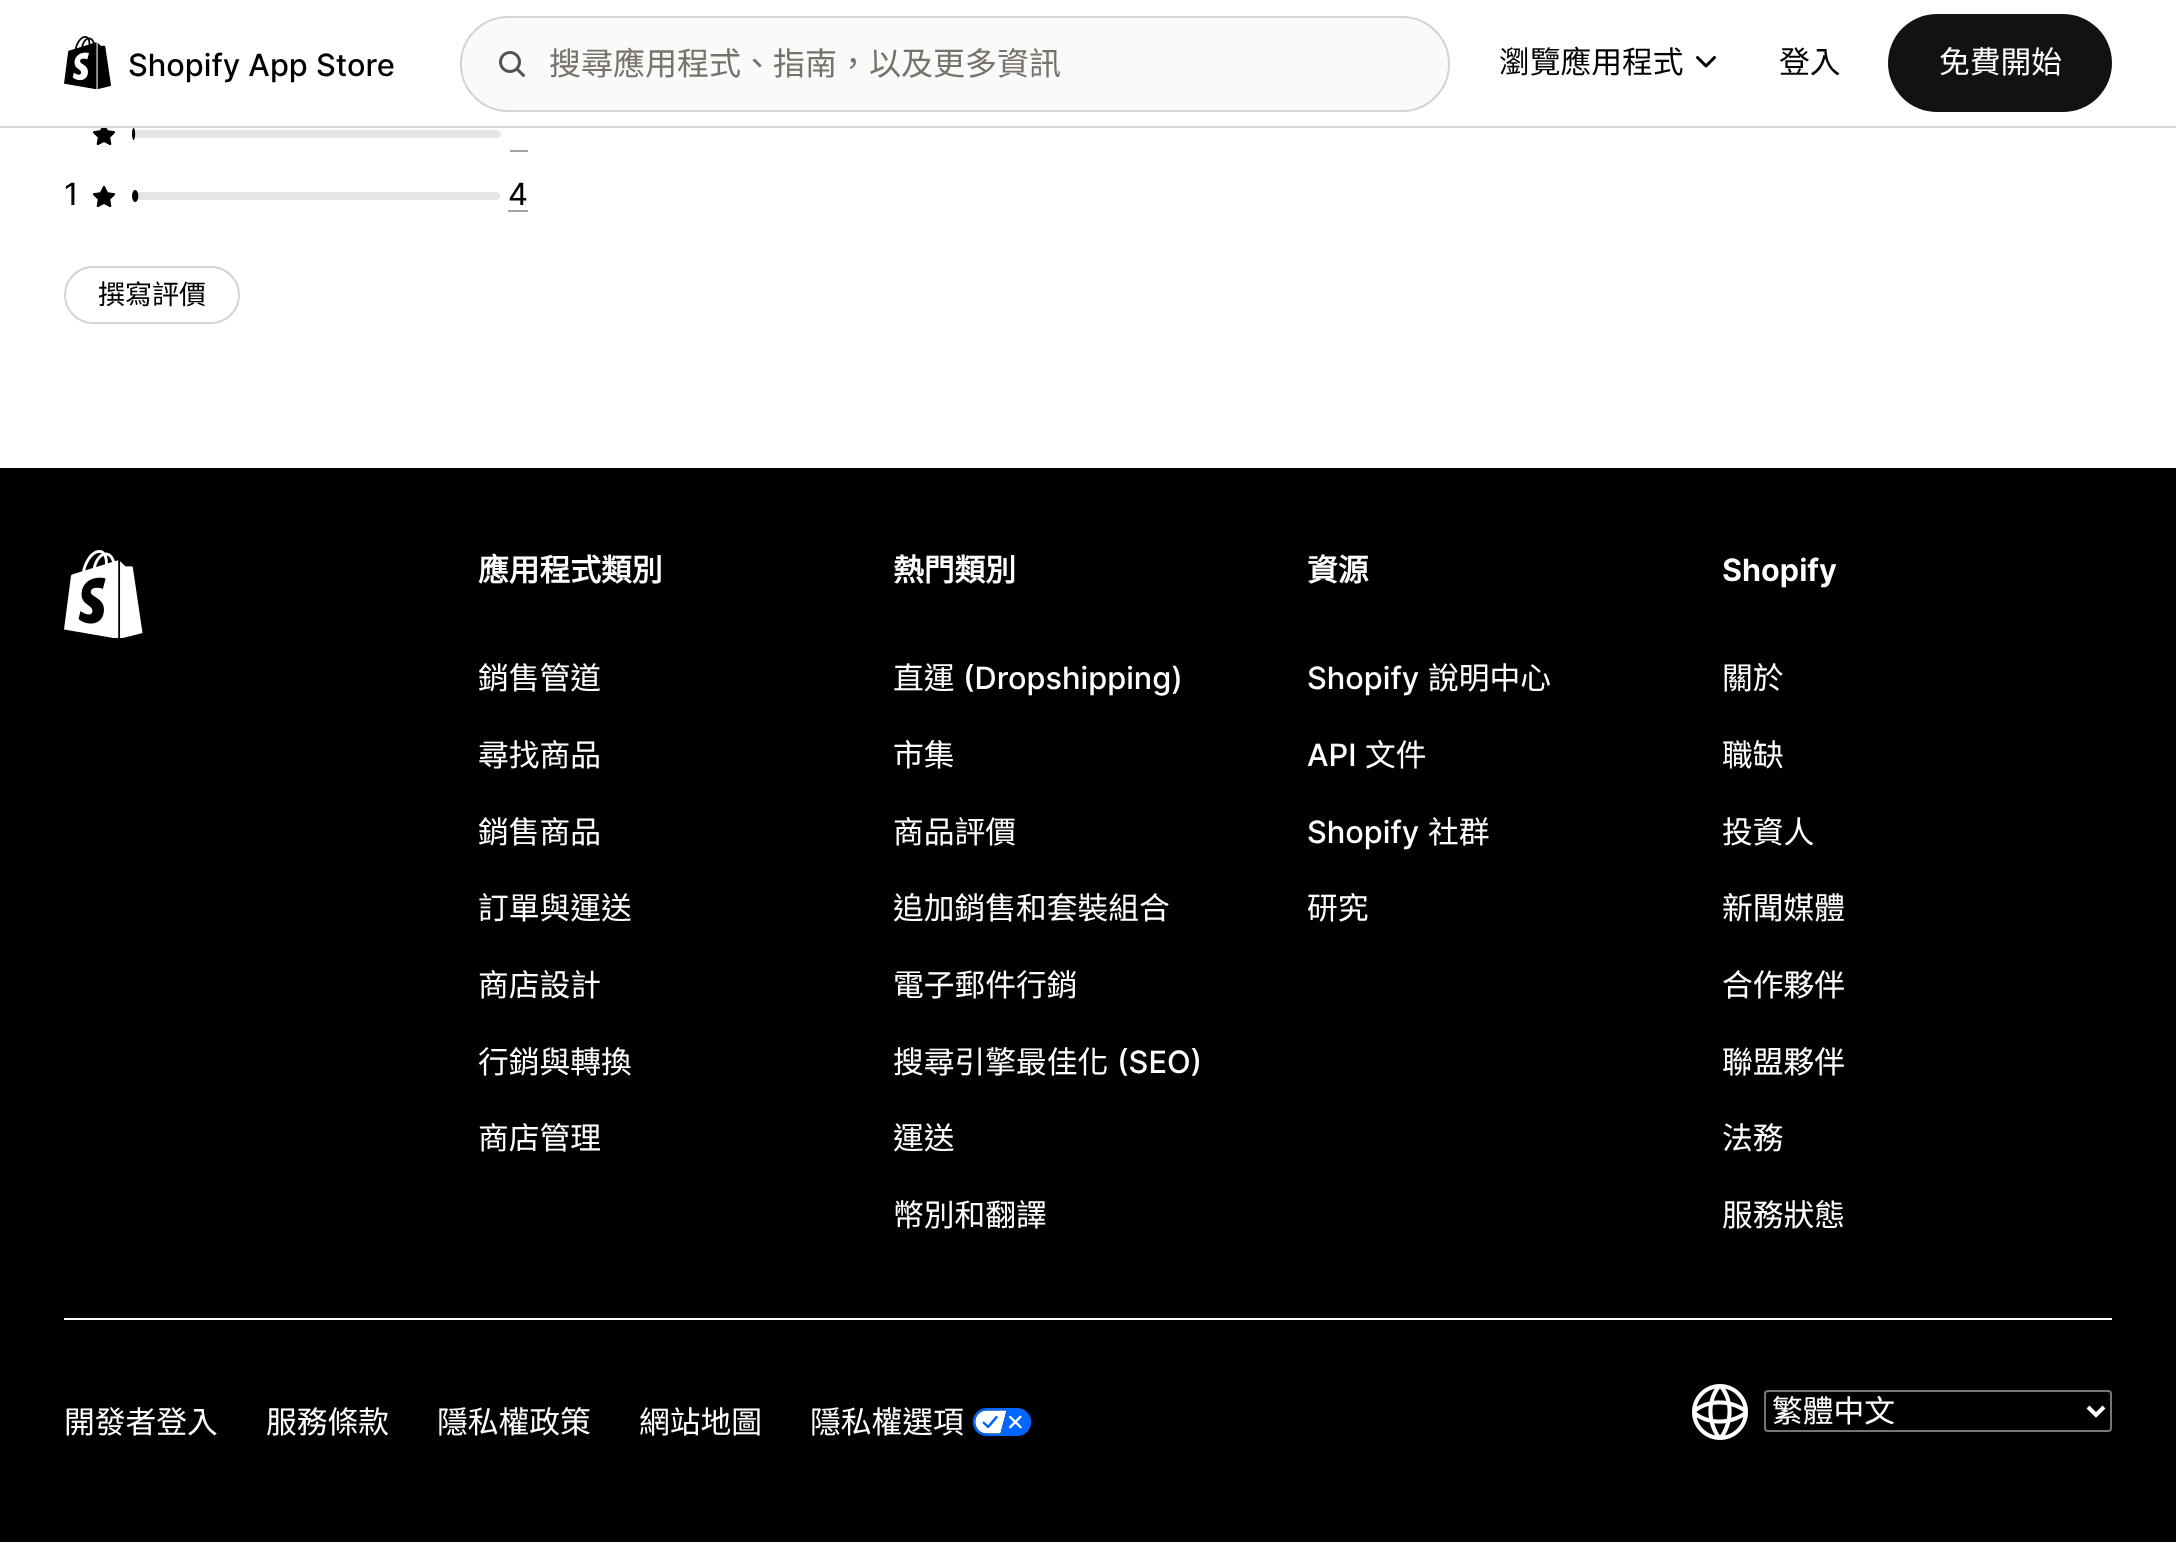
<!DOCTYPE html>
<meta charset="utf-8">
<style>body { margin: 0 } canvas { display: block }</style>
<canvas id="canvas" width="2176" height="1542"></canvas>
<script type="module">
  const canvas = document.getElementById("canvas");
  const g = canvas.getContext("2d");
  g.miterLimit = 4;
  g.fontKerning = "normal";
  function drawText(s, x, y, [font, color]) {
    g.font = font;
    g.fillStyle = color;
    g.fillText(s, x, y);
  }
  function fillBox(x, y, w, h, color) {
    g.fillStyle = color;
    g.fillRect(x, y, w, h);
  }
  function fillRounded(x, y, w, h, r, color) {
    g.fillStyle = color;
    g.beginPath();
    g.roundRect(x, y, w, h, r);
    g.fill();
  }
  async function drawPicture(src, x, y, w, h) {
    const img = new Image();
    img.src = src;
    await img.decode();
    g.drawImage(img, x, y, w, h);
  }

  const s1 = ["500 30.75px Inter", "#000000"];
  const s2 = ["32px Noto Sans CJK TC", "#78726D"];
  const s3 = ["30.75px Noto Sans CJK TC", "#000000"];
  const s4 = ["30.75px Noto Sans CJK TC", "#FFFFFF"];
  const s5 = ["30.75px Inter", "#000000"];
  const s6 = ["27px Noto Sans CJK TC", "#000000"];
  const s7 = ["bold 30.75px Noto Sans CJK TC", "#FFFFFF"];
  const s8 = ["500 30.75px Inter", "#FFFFFF"];
  const s9 = ["600 30.75px Inter", "#FFFFFF"];

  fillBox(0, 0, 2176, 1542, "#FFFFFF");
  fillBox(0, 126, 2176, 2, "#D6D3D1");
  await drawPicture("pic1.png", 64, 36, 48, 54);
  drawText("Shopify App Store", 128, 76, s1);
  g.fillStyle = "#FAFAF9";
  g.beginPath();
  g.roundRect(461, 17, 988, 94, 47);
  g.fill();
  g.strokeStyle = "#D6D3D1";
  g.lineWidth = 2;
  g.stroke();
  await drawPicture("pic2.png", 499, 51, 26, 26);
  drawText("搜尋應用程式、指南，以及更多資訊", 549, 75, s2);
  drawText("瀏覽應用程式", 1499, 73, s3);
  await drawPicture("pic3.png", 1696, 56, 20, 12);
  drawText("登入", 1779, 73, s3);
  fillRounded(1888, 14, 224, 98, 49, "#131111");
  drawText("免費開始", 1939, 73, s4);
  await drawPicture("pic4.png", 92, 128, 24, 18);
  g.fillStyle = "#E7E5E4";
  g.beginPath();
  g.moveTo(138, 130);
  g.lineTo(495, 130);
  g.bezierCurveTo(498, 130, 501, 132, 501, 134);
  g.bezierCurveTo(501, 136, 498, 138, 495, 138);
  g.lineTo(138, 138);
  g.bezierCurveTo(135, 138, 132, 136, 132, 134);
  g.bezierCurveTo(132, 132, 135, 130, 138, 130);
  g.closePath();
  g.fill();
  await drawPicture("pic5.png", 132, 128, 4, 12);
  fillBox(510, 150, 18, 2, "#A8A29F");
  drawText("1", 64, 205, s5);
  await drawPicture("pic6.png", 92, 185, 24, 23);
  g.fillStyle = "#E7E5E4";
  g.beginPath();
  g.moveTo(138, 192);
  g.lineTo(495, 192);
  g.bezierCurveTo(498, 192, 501, 194, 501, 196);
  g.bezierCurveTo(501, 198, 498, 200, 495, 200);
  g.lineTo(138, 200);
  g.bezierCurveTo(135, 200, 132, 198, 132, 196);
  g.bezierCurveTo(132, 194, 135, 192, 138, 192);
  g.closePath();
  g.fill();
  await drawPicture("pic7.png", 132, 190, 7, 12);
  fillBox(500, 194, 1, 4, "#FFFFFF");
  drawText("4", 508, 205, s5);
  fillBox(508, 210, 20, 2, "#A8A29F");
  g.beginPath();
  g.roundRect(65, 267, 174, 56, 28);
  g.stroke();
  drawText("撰寫評價", 98, 304, s6);
  fillBox(0, 468, 2176, 1074, "#000000");
  await drawPicture("pic8.png", 64, 550, 79, 88);
  drawText("應用程式類別", 478, 581, s7);
  drawText("銷售管道", 478, 689, s4);
  drawText("尋找商品", 478, 766, s4);
  drawText("銷售商品", 478, 843, s4);
  drawText("訂單與運送", 478, 919, s4);
  drawText("商店設計", 478, 996, s4);
  drawText("行銷與轉換", 478, 1073, s4);
  drawText("商店管理", 478, 1149, s4);
  drawText("熱門類別", 893, 581, s7);
  drawText("直運", 893, 689, s4);
  drawText("(Dropshipping)", 963, 689, s8);
  drawText("市集", 893, 766, s4);
  drawText("商品評價", 893, 843, s4);
  drawText("追加銷售和套裝組合", 893, 919, s4);
  drawText("電子郵件行銷", 893, 996, s4);
  drawText("搜尋引擎最佳化", 893, 1073, s4);
  drawText("(SEO)", 1117, 1073, s8);
  drawText("運送", 893, 1149, s4);
  drawText("幣別和翻譯", 893, 1226, s4);
  drawText("資源", 1307, 581, s7);
  drawText("Shopify", 1307, 689, s8);
  drawText("說明中心", 1428, 689, s4);
  drawText("API", 1307, 766, s8);
  drawText("文件", 1365, 766, s4);
  drawText("Shopify", 1307, 843, s8);
  drawText("社群", 1428, 843, s4);
  drawText("研究", 1307, 919, s4);
  drawText("Shopify", 1722, 581, s9);
  drawText("關於", 1722, 689, s4);
  drawText("職缺", 1722, 766, s4);
  drawText("投資人", 1722, 843, s4);
  drawText("新聞媒體", 1722, 919, s4);
  drawText("合作夥伴", 1722, 996, s4);
  drawText("聯盟夥伴", 1722, 1073, s4);
  drawText("法務", 1722, 1149, s4);
  drawText("服務狀態", 1722, 1226, s4);
  fillBox(64, 1318, 2048, 2, "#FFFFFF");
  drawText("開發者登入", 64, 1433, s4);
  drawText("服務條款", 266, 1433, s4);
  drawText("隱私權政策", 437, 1433, s4);
  drawText("網站地圖", 639, 1433, s4);
  drawText("隱私權選項", 810, 1433, s4);
  await drawPicture("pic9.png", 972, 1408, 60, 28);
  await drawPicture("pic10.png", 1692, 1384, 56, 56);
  g.beginPath();
  g.roundRect(1765, 1391, 346, 40, 3);
  g.strokeStyle = "#767676";
  g.stroke();
  g.beginPath();
  g.moveTo(2088, 1407);
  g.lineTo(2096, 1415);
  g.lineTo(2104, 1407);
  g.strokeStyle = "#FFFFFF";
  g.lineWidth = 4;
  g.stroke();
  drawText("繁體中文", 1772, 1422, s4);
</script>
